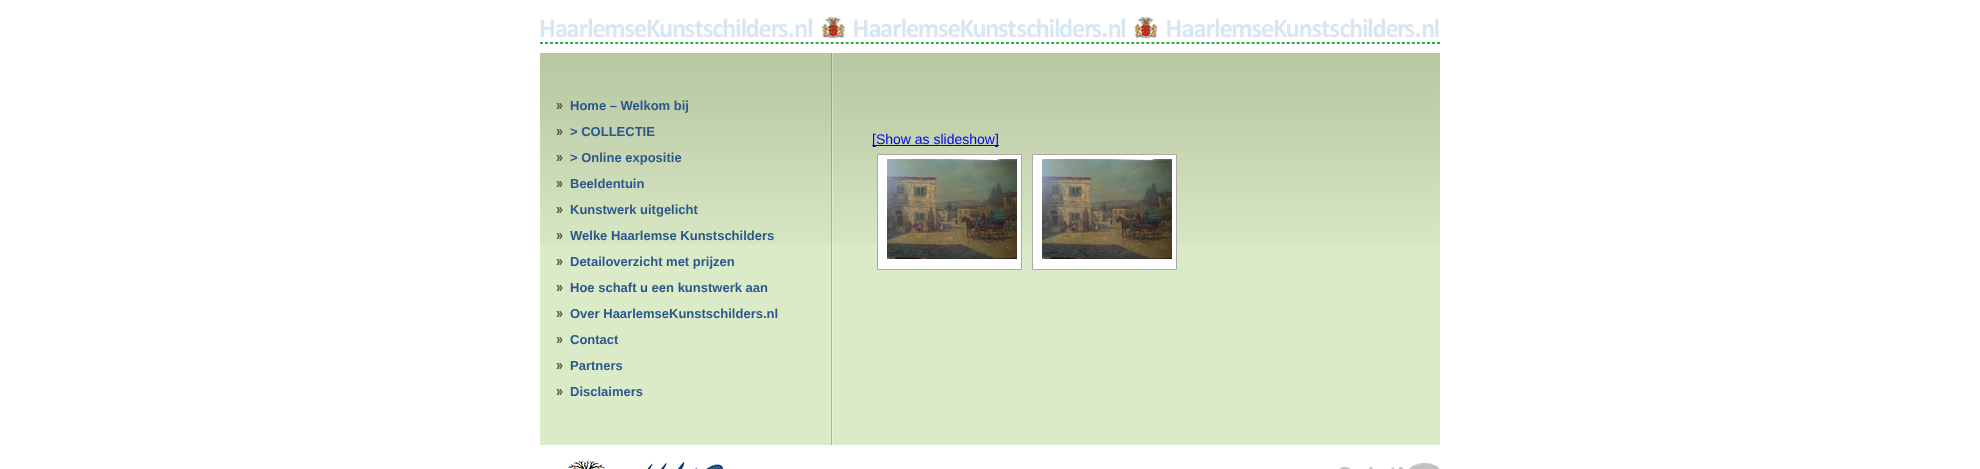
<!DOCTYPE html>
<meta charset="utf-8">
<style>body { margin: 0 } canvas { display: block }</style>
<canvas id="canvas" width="1980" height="469"></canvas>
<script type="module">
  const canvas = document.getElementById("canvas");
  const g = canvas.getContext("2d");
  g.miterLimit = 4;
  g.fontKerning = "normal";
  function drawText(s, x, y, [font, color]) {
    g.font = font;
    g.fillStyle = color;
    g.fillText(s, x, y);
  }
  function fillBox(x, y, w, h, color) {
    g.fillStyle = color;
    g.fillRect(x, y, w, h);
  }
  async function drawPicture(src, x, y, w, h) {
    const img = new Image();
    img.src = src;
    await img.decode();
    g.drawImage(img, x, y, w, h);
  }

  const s1 = ["bold 13px Liberation Sans", "#2B578D"];
  const s2 = ["14px Liberation Sans", "#0000EE"];

  fillBox(0, 0, 1980, 469, "#FFFFFF");
  await drawPicture("pic1.png", 540, 16, 900, 28);
  await drawPicture("pic2.png", 540, 244, 900, 201);
  await drawPicture("pic3.png", 540, 53, 900, 191);
  await drawPicture("pic4.png", 556, 103, 7, 6);
  drawText("Home – Welkom bij", 570, 110, s1);
  await drawPicture("pic5.png", 556, 129, 7, 6);
  drawText("> COLLECTIE", 570, 136, s1);
  await drawPicture("pic6.png", 556, 155, 7, 6);
  drawText("> Online expositie", 570, 162, s1);
  await drawPicture("pic7.png", 556, 181, 7, 6);
  drawText("Beeldentuin", 570, 188, s1);
  await drawPicture("pic8.png", 556, 207, 7, 6);
  drawText("Kunstwerk uitgelicht", 570, 214, s1);
  await drawPicture("pic9.png", 556, 233, 7, 6);
  drawText("Welke Haarlemse Kunstschilders", 570, 240, s1);
  await drawPicture("pic10.png", 556, 259, 7, 6);
  drawText("Detailoverzicht met prijzen", 570, 266, s1);
  await drawPicture("pic10.png", 556, 285, 7, 6);
  drawText("Hoe schaft u een kunstwerk aan", 570, 292, s1);
  await drawPicture("pic10.png", 556, 311, 7, 6);
  drawText("Over HaarlemseKunstschilders.nl", 570, 318, s1);
  await drawPicture("pic10.png", 556, 337, 7, 6);
  drawText("Contact", 570, 344, s1);
  await drawPicture("pic10.png", 556, 363, 7, 6);
  drawText("Partners", 570, 370, s1);
  await drawPicture("pic10.png", 556, 389, 7, 6);
  drawText("Disclaimers", 570, 396, s1);
  fillBox(872, 145, 127, 1, "#0000EE");
  drawText("[Show as slideshow]", 872, 144, s2);
  g.fillStyle = "#FFFFFF";
  g.beginPath();
  g.rect(877.5, 154.5, 144, 115);
  g.fill();
  g.strokeStyle = "#A9A9A9";
  g.stroke();
  await drawPicture("pic11.png", 887, 159, 130, 100);
  g.beginPath();
  g.rect(1032.5, 154.5, 144, 115);
  g.fill();
  g.stroke();
  await drawPicture("pic11.png", 1042, 159, 130, 100);
  await drawPicture("pic12.png", 568, 460, 156, 9);
  await drawPicture("pic13.png", 1339, 463, 101, 6);
</script>
